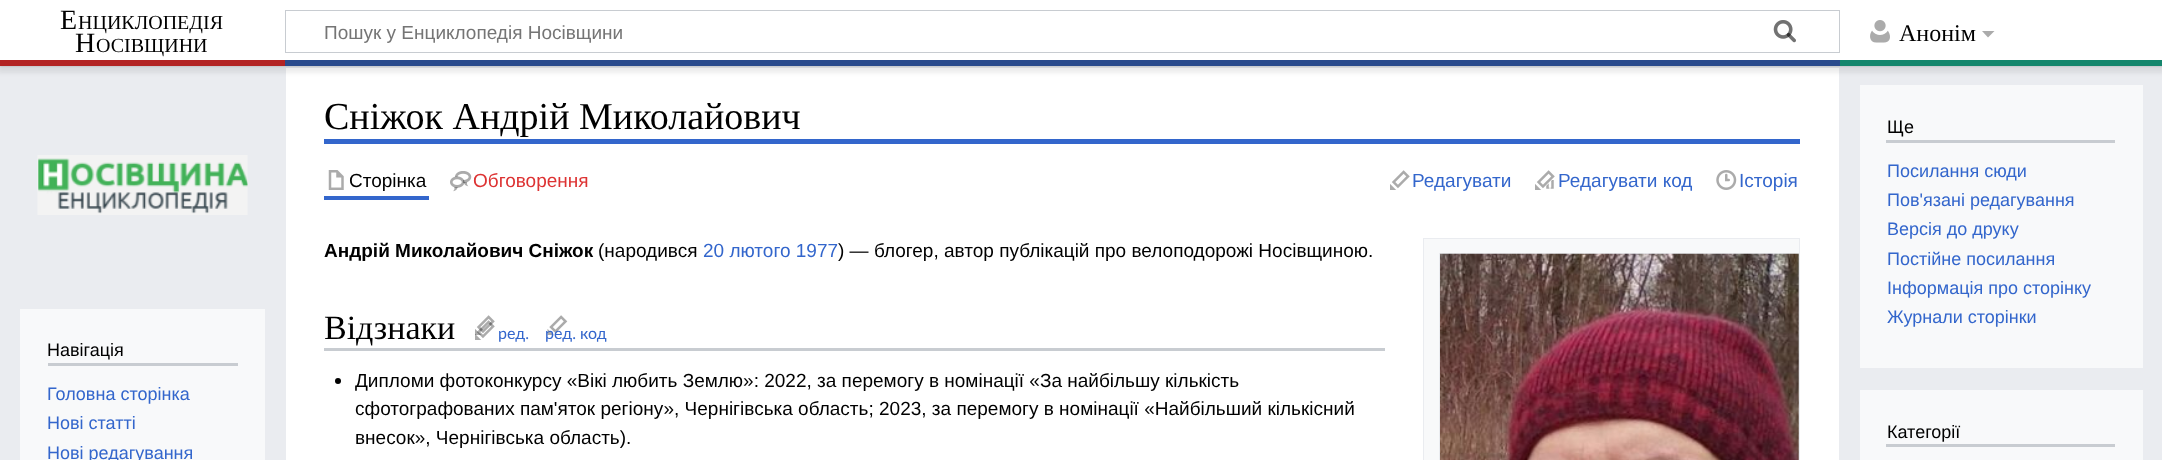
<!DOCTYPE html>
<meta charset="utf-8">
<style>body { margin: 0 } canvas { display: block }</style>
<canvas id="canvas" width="2162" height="460"></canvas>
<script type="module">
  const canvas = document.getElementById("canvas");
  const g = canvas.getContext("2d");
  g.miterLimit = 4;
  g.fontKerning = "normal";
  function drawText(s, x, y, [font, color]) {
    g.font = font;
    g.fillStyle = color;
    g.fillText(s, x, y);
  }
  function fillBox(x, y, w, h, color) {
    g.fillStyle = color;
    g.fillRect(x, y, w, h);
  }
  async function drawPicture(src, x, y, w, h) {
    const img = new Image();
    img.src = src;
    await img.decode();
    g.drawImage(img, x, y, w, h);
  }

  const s1 = ["28px Liberation Serif", "#000000"];
  const s2 = ["20px Liberation Serif", "#000000"];
  const s3 = ["19px Liberation Sans", "#757575"];
  const s4 = ["24px Liberation Serif", "#000000"];
  const s5 = ["18px Liberation Sans", "#000000"];
  const s6 = ["18px Liberation Sans", "#3366CC"];
  const s7 = ["38px Liberation Serif", "#000000"];
  const s8 = ["19px Liberation Sans", "#000000"];
  const s9 = ["19px Liberation Sans", "#DD3333"];
  const s10 = ["19px Liberation Sans", "#3366CC"];
  const s11 = ["bold 19px Liberation Sans", "#000000"];
  const s12 = ["34px Liberation Serif", "#000000"];
  const s13 = ["16px Lato", "#3366CC"];

  fillBox(0, 0, 2162, 460, "#EAECF0");
  fillBox(286, 68, 1553, 392, "#FFFFFF");
  g.fillStyle = "rgba(0, 0, 0, 0.2)";
  g.filter = "blur(1px)";
  g.beginPath();
  g.rect(0, 60, 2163, 6);
  g.fill();
  g.filter = "none";
  g.fillStyle = "rgba(0, 0, 0, 0.07)";
  g.filter = "blur(2px)";
  g.beginPath();
  g.rect(-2, 61, 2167, 12);
  g.fill();
  g.filter = "none";
  fillBox(0, 0, 2162, 60, "#FFFFFF");
  drawText("Е", 60, 29, s1);
  drawText("НЦИКЛОПЕДІЯ", 78, 29, s2);
  drawText("Н", 75, 52, s1);
  drawText("ОСІВЩИНИ", 96, 52, s2);
  g.strokeStyle = "#C8CCD1";
  g.strokeRect(285.5, 10.5, 1554, 42);
  await drawPicture("pic1.png", 1773, 20, 23, 23);
  drawText("Пошук у Енциклопедія Носівщини", 324, 39, s3);
  await drawPicture("pic2.png", 1773, 20, 23, 23);
  await drawPicture("pic3.png", 1870, 20, 20, 23);
  drawText("Анонім", 1899, 41, s4);
  g.fillStyle = "#ABABAB";
  g.beginPath();
  g.moveTo(1994.5, 31);
  g.lineTo(1988, 37.5);
  g.lineTo(1982, 31);
  g.closePath();
  g.fill();
  fillBox(0, 60, 285, 6, "#B32424");
  fillBox(285, 60, 1555, 6, "#2A4B8D");
  fillBox(1840, 60, 322, 6, "#14866D");
  await drawPicture("pic4.png", 37, 155, 211, 60);
  fillBox(20, 309, 245, 151, "#F8F9FA");
  fillBox(48, 363, 190, 3, "#C8CCD1");
  drawText("Навігація", 47, 356, s5);
  drawText("Головна сторінка", 47, 400, s6);
  drawText("Нові статті", 47, 429, s6);
  drawText("Нові редагування", 47, 459, s6);
  fillBox(324, 139, 1476, 5, "#3366CC");
  drawText("Сніжок Андрій Миколайович", 324, 129, s7);
  fillBox(324, 196, 105, 4, "#3366CC");
  await drawPicture("pic5.png", 328, 170, 16, 20);
  drawText("Сторінка", 349, 187, s8);
  await drawPicture("pic6.png", 450, 171, 22, 21);
  drawText("Обговорення", 473, 187, s9);
  await drawPicture("pic7.png", 1390, 170, 20, 20);
  drawText("Редагувати", 1412, 187, s10);
  await drawPicture("pic8.png", 1535, 170, 20, 20);
  drawText("Редагувати код", 1558, 187, s10);
  await drawPicture("pic9.png", 1716, 170, 21, 20);
  drawText("Історія", 1739, 187, s10);
  drawText("Андрій Миколайович Сніжок", 324, 257, s11);
  drawText("(народився", 598, 257, s8);
  drawText("20 лютого 1977", 703, 257, s10);
  drawText(") — блогер, автор публікацій про велоподорожі Носівщиною.", 838, 257, s8);
  fillBox(1424, 239, 375, 221, "#F8F9FA");
  fillBox(1423, 238, 377, 1, "#EAECF0");
  fillBox(1799, 238, 1, 222, "#EAECF0");
  fillBox(1423, 238, 1, 222, "#EAECF0");
  g.save();
  g.beginPath();
  g.rect(1424, 239, 375, 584);
  g.clip();
  g.strokeStyle = "#EAECF0";
  g.strokeRect(1439.5, 253.5, 374, 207);
  g.restore();
  await drawPicture("pic10.png", 1440, 253, 359, 207);
  drawText("Відзнаки", 324, 339, s12);
  await drawPicture("pic11.png", 475, 315, 93, 25);
  drawText("ред.", 498, 339, s13);
  drawText("ред. код", 545, 339, s13);
  fillBox(324, 348, 1061, 3, "#C8CCD1");
  g.fillStyle = "#000000";
  g.beginPath();
  g.arc(338, 381, 3, 0, Math.PI * 2);
  g.fill();
  drawText("Дипломи фотоконкурсу «Вікі любить Землю»: 2022, за перемогу в номінації «За найбільшу кількість", 355, 387, s8);
  drawText("сфотографованих пам'яток регіону», Чернігівська область; 2023, за перемогу в номінації «Найбільший кількісний", 355, 415, s8);
  drawText("внесок», Чернігівська область).", 355, 444, s8);
  fillBox(1860, 85, 283, 283, "#F8F9FA");
  fillBox(1886, 140, 229, 3, "#C8CCD1");
  drawText("Ще", 1887, 133, s5);
  drawText("Посилання сюди", 1887, 177, s6);
  drawText("Пов'язані редагування", 1887, 206, s6);
  drawText("Версія до друку", 1887, 235, s6);
  drawText("Постійне посилання", 1887, 265, s6);
  drawText("Інформація про сторінку", 1887, 294, s6);
  drawText("Журнали сторінки", 1887, 323, s6);
  fillBox(1860, 390, 283, 70, "#F8F9FA");
  fillBox(1886, 444, 229, 3, "#C8CCD1");
  drawText("Категорії", 1887, 438, s5);
</script>
